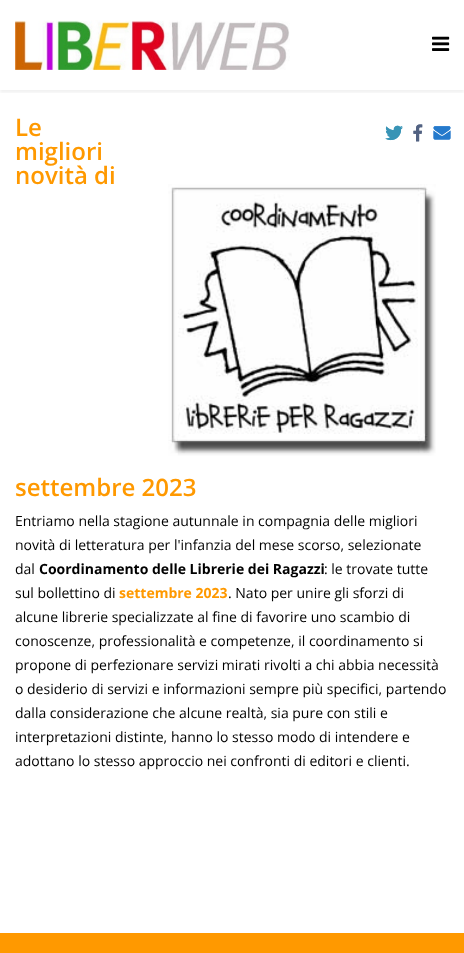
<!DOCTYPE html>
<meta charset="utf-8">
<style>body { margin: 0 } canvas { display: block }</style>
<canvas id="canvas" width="464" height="953"></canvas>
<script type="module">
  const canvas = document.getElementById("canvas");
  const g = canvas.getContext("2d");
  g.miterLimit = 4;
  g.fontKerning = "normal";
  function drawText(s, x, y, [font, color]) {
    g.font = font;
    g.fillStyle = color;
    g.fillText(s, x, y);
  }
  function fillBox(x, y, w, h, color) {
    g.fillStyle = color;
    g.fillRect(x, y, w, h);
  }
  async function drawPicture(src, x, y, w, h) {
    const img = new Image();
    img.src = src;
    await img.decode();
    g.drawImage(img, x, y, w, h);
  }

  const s1 = ["600 24px Open Sans", "#FF9900"];
  const s2 = ["14px Open Sans", "#000000"];
  const s3 = ["bold 14px Open Sans", "#000000"];
  const s4 = ["bold 14px Open Sans", "#FF9900"];

  fillBox(0, 0, 464, 953, "#FFFFFF");
  g.save();
  g.beginPath();
  g.rect(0, 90, 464, 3);
  g.clip();
  g.fillStyle = "rgba(0, 0, 0, 0.05)";
  g.filter = "blur(1.5px)";
  g.beginPath();
  g.rect(0, 3, 464, 90);
  g.fill();
  g.filter = "none";
  g.restore();
  await drawPicture("pic1.png", 15, 20, 275, 50);
  await drawPicture("pic2.png", 432, 36, 18, 15);
  drawText("Le", 15, 136, s1);
  drawText("migliori", 15, 160, s1);
  drawText("novità di", 15, 184, s1);
  drawText("settembre 2023", 15, 496, s1);
  await drawPicture("pic3.png", 385, 125, 18, 16);
  await drawPicture("pic4.png", 413, 124, 10, 18);
  await drawPicture("pic5.png", 433, 126, 18, 14);
  fillBox(386, 126, 16, 14, "rgba(255, 255, 255, 0.05)");
  await drawPicture("pic6.png", 385, 125, 18, 16);
  await drawPicture("pic7.png", 413, 124, 10, 18);
  fillBox(433, 126, 18, 14, "rgba(255, 255, 255, 0.05)");
  await drawPicture("pic8.png", 433, 126, 18, 14);
  await drawPicture("pic9.png", 168, 184, 268, 272);
  drawText("Entriamo nella stagione autunnale in compagnia delle migliori", 15, 526, s2);
  drawText("novità di letteratura per l'infanzia del mese scorso, selezionate", 15, 550, s2);
  drawText("dal", 15, 574, s2);
  drawText("Coordinamento delle Librerie dei Ragazzi", 39, 574, s3);
  drawText(": le trovate tutte", 324, 574, s2);
  drawText("sul bollettino di", 15, 598, s2);
  drawText("settembre 2023", 119, 598, s4);
  drawText(". Nato per unire gli sforzi di", 228, 598, s2);
  drawText("alcune librerie specializzate al fine di favorire uno scambio di", 15, 622, s2);
  drawText("conoscenze, professionalità e competenze, il coordinamento si", 15, 646, s2);
  drawText("propone di perfezionare servizi mirati rivolti a chi abbia necessità", 15, 670, s2);
  drawText("o desiderio di servizi e informazioni sempre più specifici, partendo", 15, 694, s2);
  drawText("dalla considerazione che alcune realtà, sia pure con stili e", 15, 718, s2);
  drawText("interpretazioni distinte, hanno lo stesso modo di intendere e", 15, 742, s2);
  drawText("adottano lo stesso approccio nei confronti di editori e clienti.", 15, 766, s2);
  fillBox(0, 933, 464, 20, "#FF9900");
</script>
